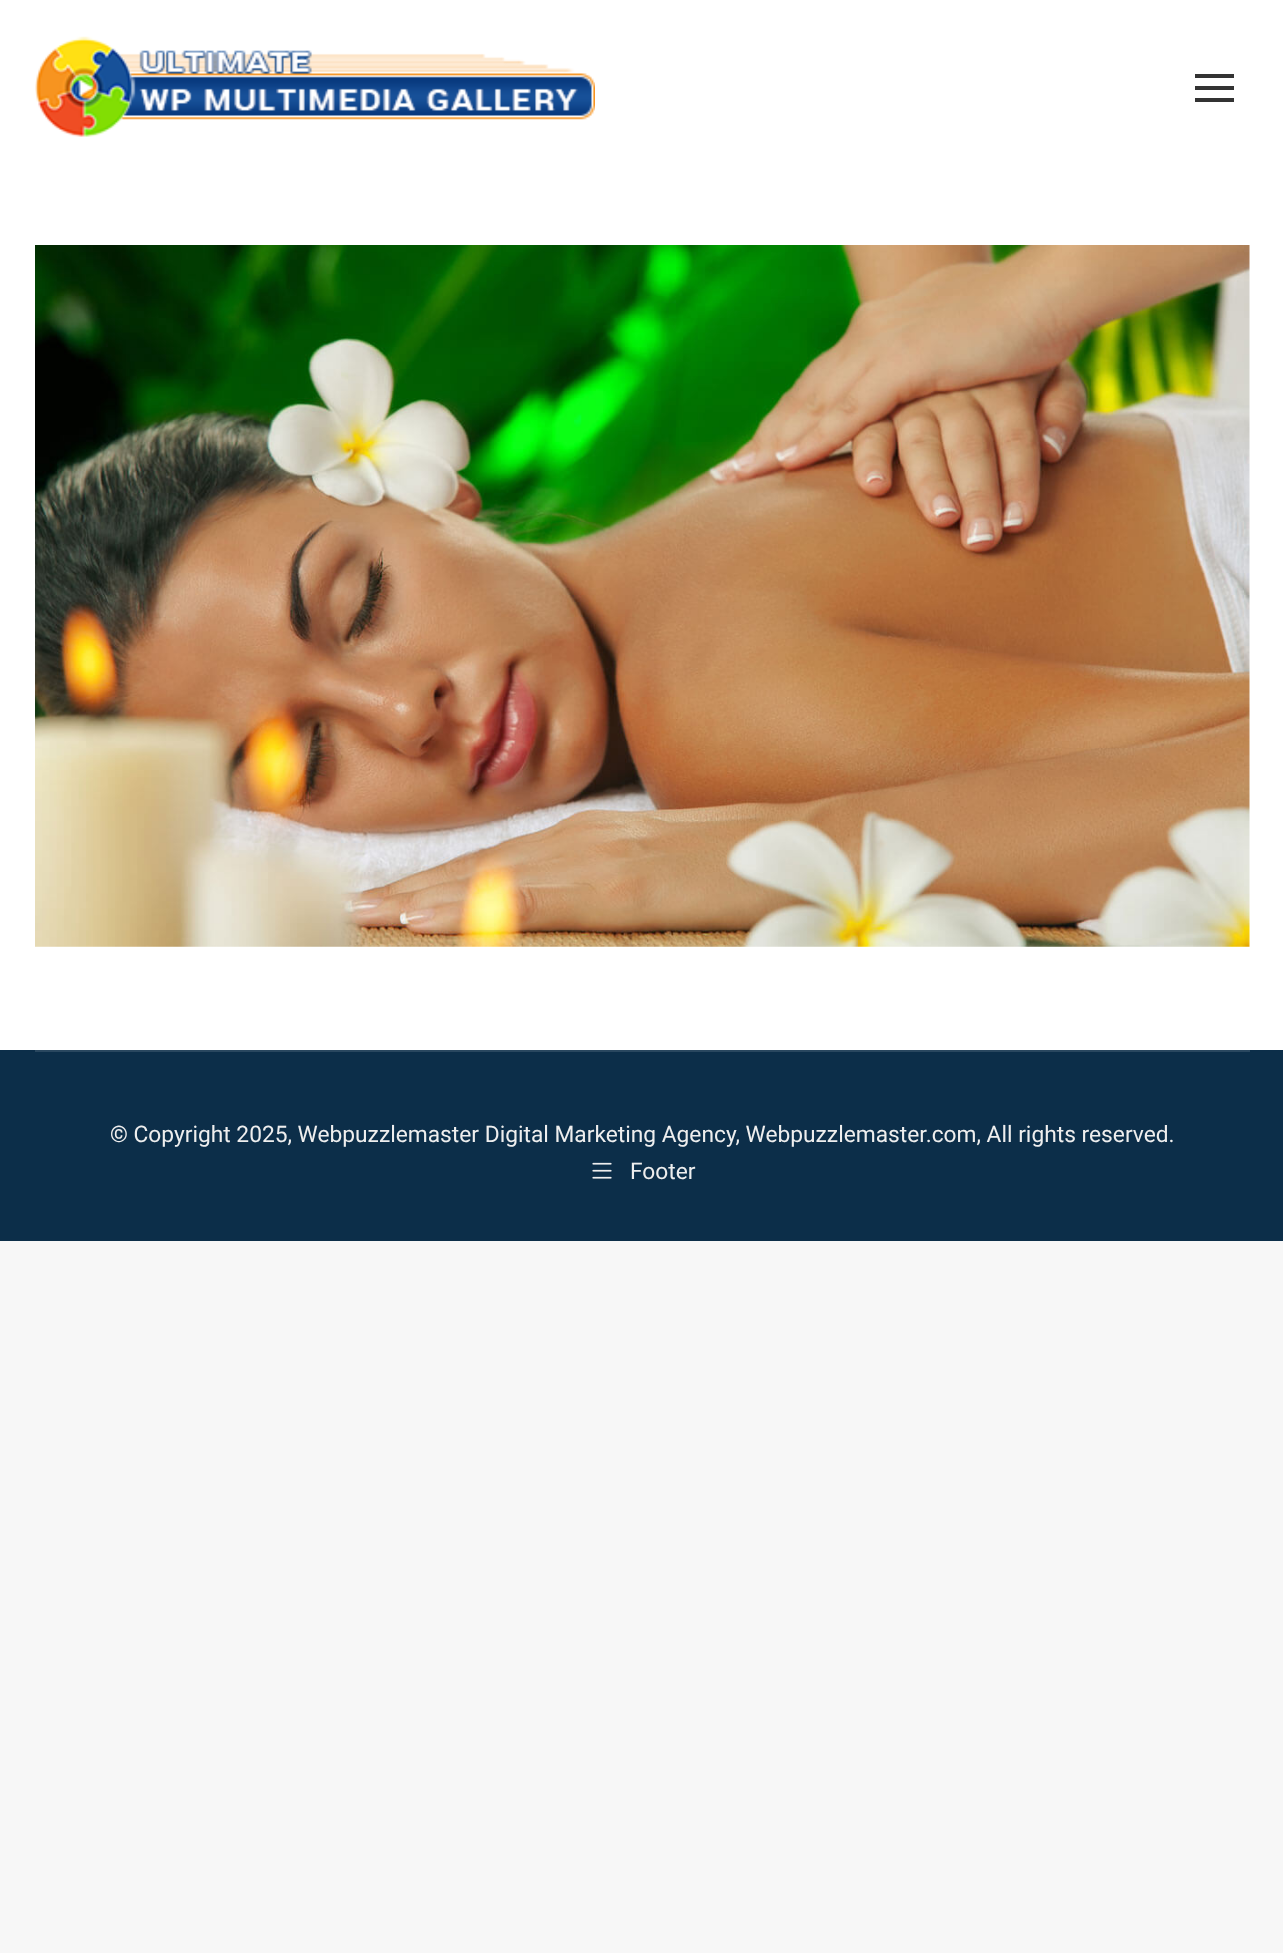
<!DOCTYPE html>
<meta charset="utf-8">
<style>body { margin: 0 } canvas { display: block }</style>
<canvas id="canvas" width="1283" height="1953"></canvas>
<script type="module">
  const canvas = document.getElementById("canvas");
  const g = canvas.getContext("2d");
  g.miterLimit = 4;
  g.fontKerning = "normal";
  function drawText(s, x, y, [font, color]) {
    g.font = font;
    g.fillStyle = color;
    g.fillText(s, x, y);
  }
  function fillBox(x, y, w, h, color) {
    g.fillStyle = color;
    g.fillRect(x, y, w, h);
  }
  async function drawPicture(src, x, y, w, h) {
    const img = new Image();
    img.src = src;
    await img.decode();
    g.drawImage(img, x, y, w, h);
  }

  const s1 = ["22.75px Roboto", "#EEEEEE"];

  fillBox(0, 0, 1283, 1953, "#F7F7F7");
  fillBox(0, 0, 1283, 1050, "#FFFFFF");
  await drawPicture("pic1.png", 35, 36, 560, 101);
  fillBox(1195, 74, 39, 4, "#333333");
  fillBox(1195, 86, 39, 4, "#333333");
  fillBox(1195, 98, 39, 4, "#333333");
  await drawPicture("pic2.png", 35, 245, 1215, 702);
  fillBox(0, 1050, 1283, 191, "#0C2E49");
  fillBox(35, 1050, 1215, 2, "#29475F");
  drawText("© Copyright 2025, Webpuzzlemaster Digital Marketing Agency, Webpuzzlemaster.com, All rights reserved.", 110, 1142, s1);
  await drawPicture("pic3.png", 592, 1162, 20, 17);
  drawText("Footer", 630, 1179, s1);
</script>
